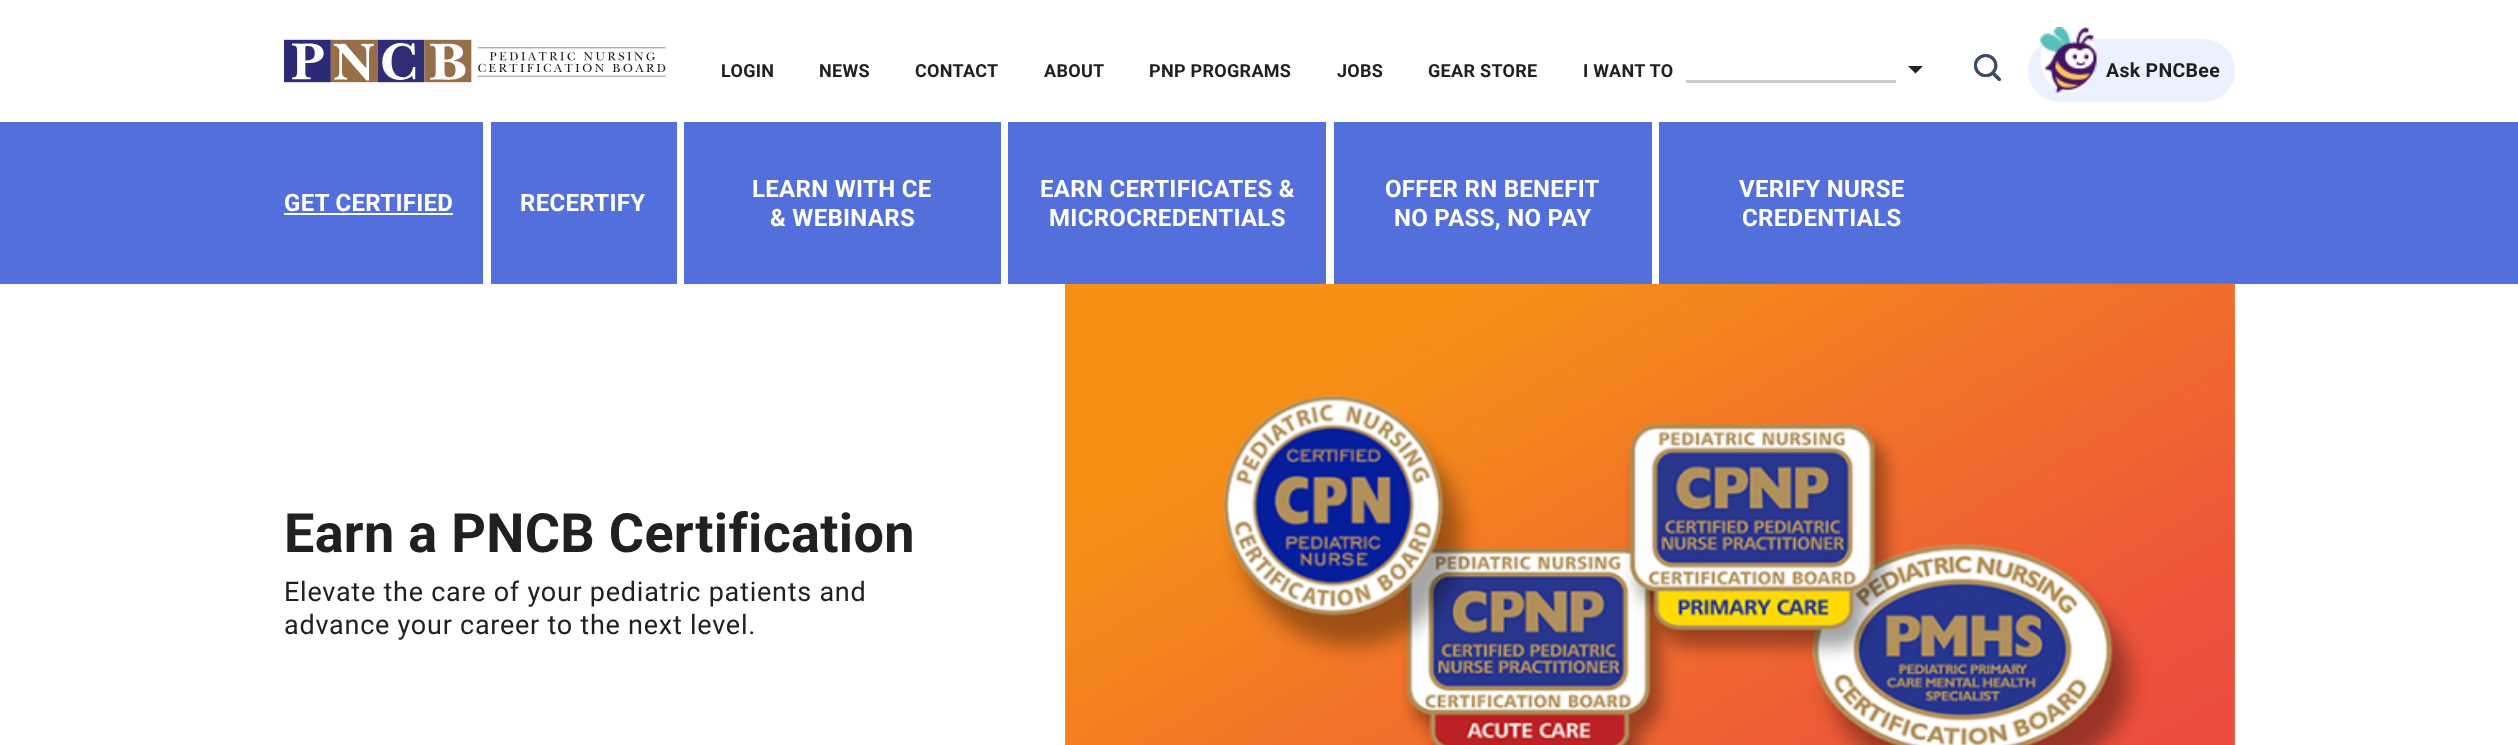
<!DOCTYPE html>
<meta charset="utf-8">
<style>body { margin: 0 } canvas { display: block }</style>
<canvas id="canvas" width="2518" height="745"></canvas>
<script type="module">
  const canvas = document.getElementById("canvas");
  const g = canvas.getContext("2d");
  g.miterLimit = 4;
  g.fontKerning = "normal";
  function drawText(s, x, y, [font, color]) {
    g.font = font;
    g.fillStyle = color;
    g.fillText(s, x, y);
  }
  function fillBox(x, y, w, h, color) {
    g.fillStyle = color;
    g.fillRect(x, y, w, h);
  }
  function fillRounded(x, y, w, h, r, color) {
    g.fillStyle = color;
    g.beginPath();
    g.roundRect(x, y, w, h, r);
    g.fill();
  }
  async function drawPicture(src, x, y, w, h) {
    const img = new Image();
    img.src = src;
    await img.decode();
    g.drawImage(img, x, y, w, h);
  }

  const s1 = ["bold 18px Roboto", "#202020"];
  const s2 = ["bold 19.5px Roboto", "#202020"];
  const s3 = ["bold 24px Roboto", "#FFFFFF"];
  const s4 = ["bold 54px Roboto", "#202020"];
  const s5 = ["27px Roboto", "#202020"];

  fillBox(0, 0, 2518, 745, "#FFFFFF");
  await drawPicture("pic1.png", 284, 39, 382, 44);
  g.letterSpacing = "0.3px";
  drawText("LOGIN", 721, 77, s1);
  drawText("NEWS", 819, 77, s1);
  drawText("CONTACT", 915, 77, s1);
  drawText("ABOUT", 1044, 77, s1);
  drawText("PNP PROGRAMS", 1149, 77, s1);
  drawText("JOBS", 1337, 77, s1);
  drawText("GEAR STORE", 1428, 77, s1);
  drawText("I WANT TO", 1583, 77, s1);
  g.fillStyle = "#222222";
  g.beginPath();
  g.moveTo(1908, 66);
  g.lineTo(1923, 66);
  g.lineTo(1915.5, 73.5);
  g.closePath();
  g.fill();
  fillBox(1686, 80, 210, 3, "#CCCCCC");
  await drawPicture("pic2.png", 1974, 54, 27, 27);
  await drawPicture("pic3.png", 1974, 54, 27, 27);
  fillRounded(2028, 39, 207, 63, 31.5, "#EBF1FE");
  g.fillStyle = "#FFFFFF";
  g.beginPath();
  g.ellipse(2068.5, 59, 28, 33, 0, 0, Math.PI * 2);
  g.fill();
  await drawPicture("pic4.png", 2040, 27, 57, 66);
  drawText("Ask PNCBee", 2106, 77, s2);
  fillBox(0, 122, 2518, 162, "#526FDC");
  fillBox(483, 122, 8, 162, "#FFFFFF");
  drawText("GET CERTIFIED", 284, 211, s3);
  fillBox(284, 213, 169, 2, "#FFFFFF");
  fillBox(677, 122, 7, 162, "#FFFFFF");
  drawText("RECERTIFY", 520, 211, s3);
  fillBox(1001, 122, 7, 162, "#FFFFFF");
  drawText("LEARN WITH CE", 752, 197, s3);
  drawText("& WEBINARS", 770, 226, s3);
  await drawPicture("pic5.png", 1065, 283, 1170, 462);
  fillBox(1065, 283, 261, 1, "#526FDC");
  fillBox(1326, 122, 8, 162, "#FFFFFF");
  drawText("EARN CERTIFICATES &", 1040, 197, s3);
  drawText("MICROCREDENTIALS", 1049, 226, s3);
  fillBox(1334, 283, 318, 1, "#526FDC");
  fillBox(1652, 122, 7, 162, "#FFFFFF");
  drawText("OFFER RN BENEFIT", 1385, 197, s3);
  drawText("NO PASS, NO PAY", 1394, 226, s3);
  fillBox(1659, 283, 326, 1, "#526FDC");
  drawText("VERIFY NURSE", 1739, 197, s3);
  drawText("CREDENTIALS", 1742, 226, s3);
  drawText("Earn a PNCB Certification", 284, 552, s4);
  g.letterSpacing = "0.75px";
  drawText("Elevate the care of your pediatric patients and", 284, 601, s5);
  drawText("advance your career to the next level.", 284, 634, s5);
</script>
